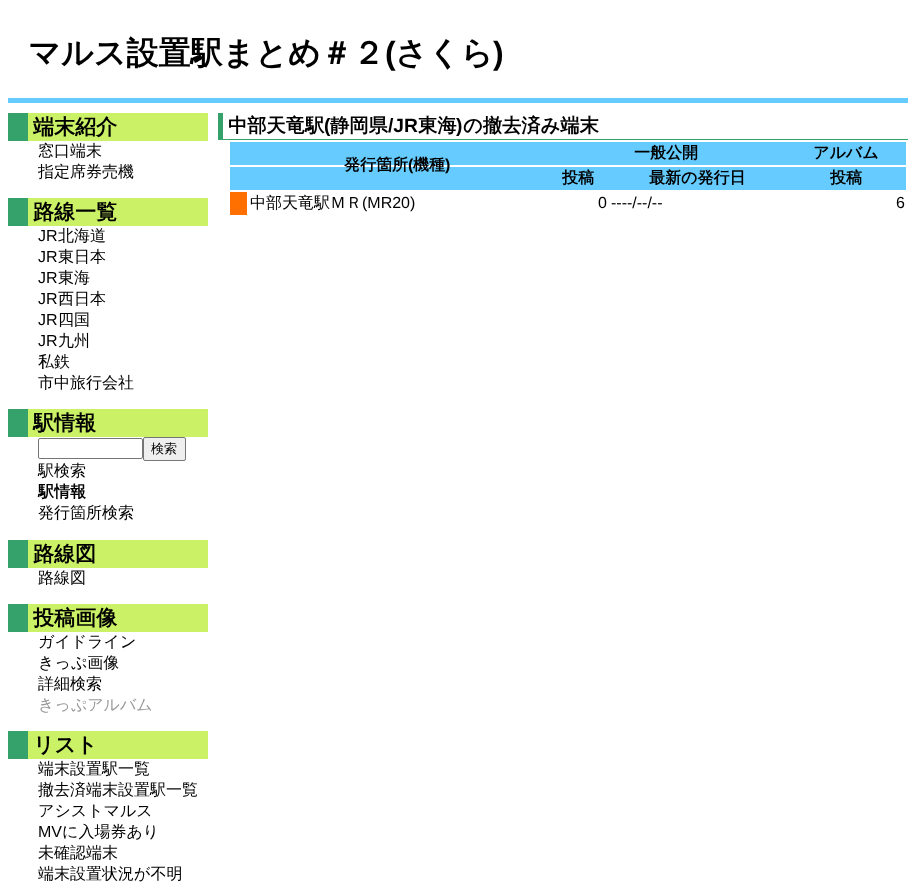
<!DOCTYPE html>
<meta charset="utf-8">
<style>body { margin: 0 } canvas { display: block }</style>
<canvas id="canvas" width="921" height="886"></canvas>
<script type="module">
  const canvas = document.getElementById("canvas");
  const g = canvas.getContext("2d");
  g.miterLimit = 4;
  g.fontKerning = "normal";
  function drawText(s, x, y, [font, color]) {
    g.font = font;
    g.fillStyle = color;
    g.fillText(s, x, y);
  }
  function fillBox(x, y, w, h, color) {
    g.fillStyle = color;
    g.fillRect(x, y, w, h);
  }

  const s1 = ["bold 32px WenQuanYi Zen Hei", "#000000"];
  const s2 = ["bold 32px Liberation Sans", "#000000"];
  const s3 = ["bold 21px WenQuanYi Zen Hei", "#000000"];
  const s4 = ["500 16px WenQuanYi Zen Hei", "#000000"];
  const s5 = ["16px Liberation Sans", "#000000"];
  const s6 = ["500 13px WenQuanYi Zen Hei", "#000000"];
  const s7 = ["bold 16px WenQuanYi Zen Hei", "#000000"];
  const s8 = ["500 16px WenQuanYi Zen Hei", "#999999"];
  const s9 = ["bold 19.25px WenQuanYi Zen Hei", "#000000"];
  const s10 = ["bold 19.25px Liberation Sans", "#000000"];
  const s11 = ["bold 16px Liberation Sans", "#000000"];

  fillBox(0, 0, 921, 886, "#FFFFFF");
  fillBox(8, 98, 900, 5, "#66CCFF");
  drawText("マルス設置駅まとめ＃２", 28, 64, s1);
  drawText("(", 385, 64, s2);
  drawText("さくら", 395, 64, s1);
  drawText(")", 493, 64, s2);
  fillBox(28, 113, 180, 28, "#CBF266");
  fillBox(8, 113, 20, 28, "#35A16B");
  drawText("端末紹介", 33, 134, s3);
  drawText("窓口端末", 38, 156, s4);
  drawText("指定席券売機", 38, 177, s4);
  fillBox(28, 198, 180, 28, "#CBF266");
  fillBox(8, 198, 20, 28, "#35A16B");
  drawText("路線一覧", 33, 219, s3);
  drawText("JR", 38, 241, s5);
  drawText("北海道", 58, 241, s4);
  drawText("JR", 38, 262, s5);
  drawText("東日本", 58, 262, s4);
  drawText("JR", 38, 283, s5);
  drawText("東海", 58, 283, s4);
  drawText("JR", 38, 304, s5);
  drawText("西日本", 58, 304, s4);
  drawText("JR", 38, 325, s5);
  drawText("四国", 58, 325, s4);
  drawText("JR", 38, 346, s5);
  drawText("九州", 58, 346, s4);
  drawText("私鉄", 38, 367, s4);
  drawText("市中旅行会社", 38, 388, s4);
  fillBox(28, 409, 180, 28, "#CBF266");
  fillBox(8, 409, 20, 28, "#35A16B");
  drawText("駅情報", 33, 430, s3);
  g.beginPath();
  g.roundRect(38.5, 438.5, 104, 20, 1.5);
  g.strokeStyle = "#767676";
  g.stroke();
  g.fillStyle = "#EFEFEF";
  g.beginPath();
  g.roundRect(143.5, 437.5, 42, 23, 1.5);
  g.fill();
  g.stroke();
  drawText("検索", 151, 453, s6);
  drawText("駅検索", 38, 476, s4);
  drawText("駅情報", 38, 497, s7);
  drawText("発行箇所検索", 38, 518, s4);
  fillBox(28, 540, 180, 28, "#CBF266");
  fillBox(8, 540, 20, 28, "#35A16B");
  drawText("路線図", 33, 561, s3);
  drawText("路線図", 38, 583, s4);
  fillBox(28, 604, 180, 28, "#CBF266");
  fillBox(8, 604, 20, 28, "#35A16B");
  drawText("投稿画像", 33, 625, s3);
  drawText("ガイドライン", 38, 647, s4);
  drawText("きっぷ画像", 38, 668, s4);
  drawText("詳細検索", 38, 689, s4);
  drawText("きっぷアルバム", 38, 710, s8);
  fillBox(28, 731, 180, 28, "#CBF266");
  fillBox(8, 731, 20, 28, "#35A16B");
  drawText("リスト", 33, 752, s3);
  drawText("端末設置駅一覧", 38, 774, s4);
  drawText("撤去済端末設置駅一覧", 38, 795, s4);
  drawText("アシストマルス", 38, 816, s4);
  drawText("MV", 38, 837, s5);
  drawText("に入場券あり", 62, 837, s4);
  drawText("未確認端末", 38, 858, s4);
  drawText("端末設置状況が不明", 38, 879, s4);
  fillBox(218, 139, 690, 1, "#35A16B");
  fillBox(218, 113, 5, 27, "#35A16B");
  drawText("中部天竜駅", 228, 132, s9);
  drawText("(", 324, 132, s10);
  drawText("静岡県", 330, 132, s9);
  drawText("/JR", 388, 132, s10);
  drawText("東海", 418, 132, s9);
  drawText(")", 456, 132, s10);
  drawText("の撤去済み端末", 463, 132, s9);
  fillBox(230, 142, 676, 23, "#66CCFF");
  drawText("一般公開", 634, 158, s7);
  drawText("アルバム", 813, 158, s7);
  fillBox(230, 167, 676, 23, "#66CCFF");
  drawText("発行箇所", 344, 170, s7);
  drawText("(", 408, 170, s11);
  drawText("機種", 413, 170, s7);
  drawText(")", 445, 170, s11);
  drawText("投稿", 562, 183, s7);
  drawText("最新の発行日", 649, 183, s7);
  drawText("投稿", 830, 183, s7);
  fillBox(230, 192, 17, 23, "#FF7000");
  drawText("中部天竜駅ＭＲ", 250, 208, s4);
  drawText("(MR20)", 362, 208, s5);
  drawText("0", 598, 208, s5);
  drawText("----/--/--", 611, 208, s5);
  drawText("6", 896, 208, s5);
</script>
